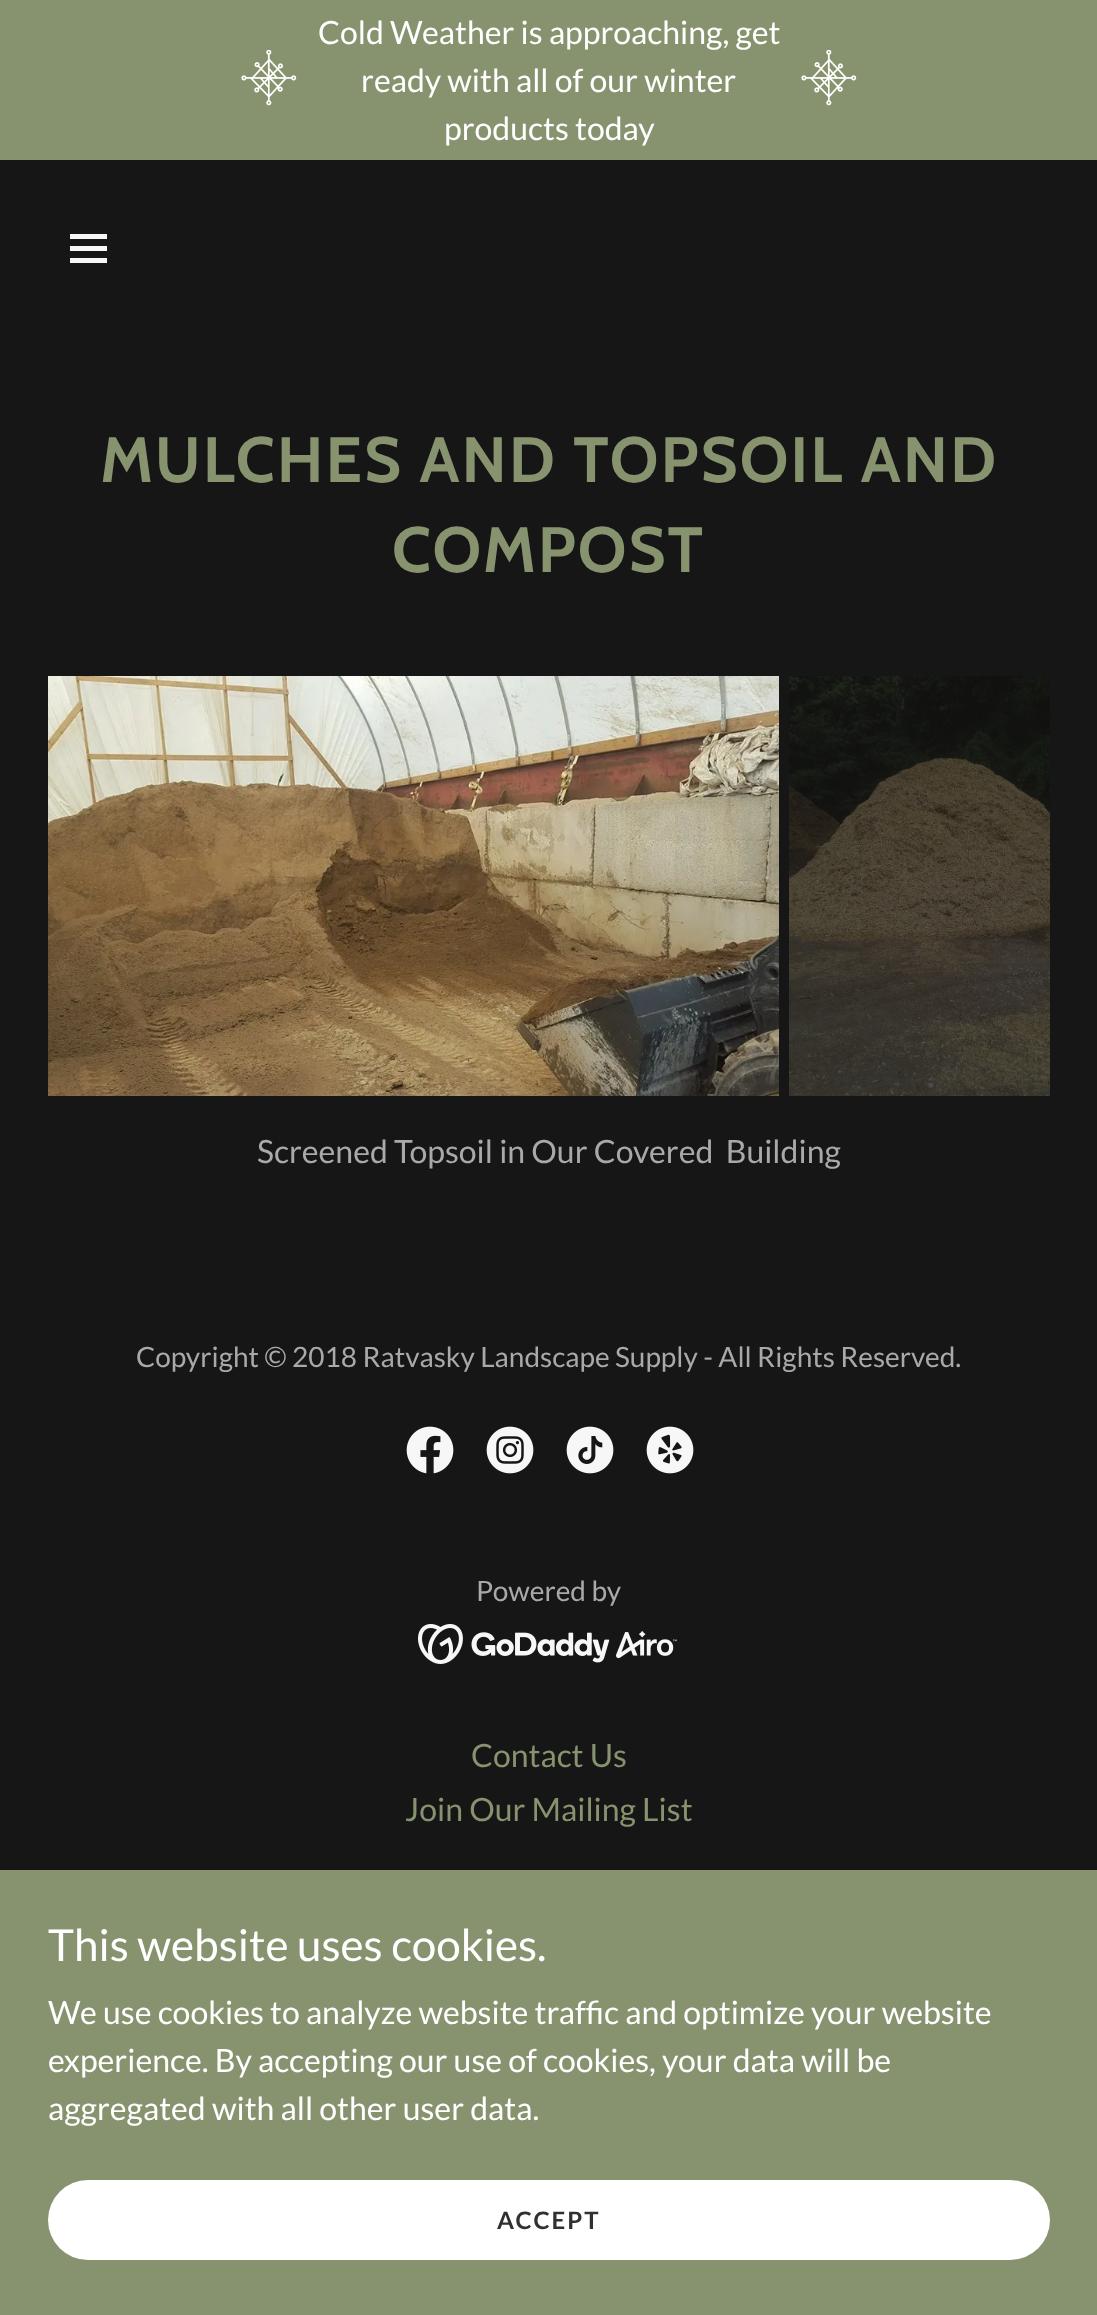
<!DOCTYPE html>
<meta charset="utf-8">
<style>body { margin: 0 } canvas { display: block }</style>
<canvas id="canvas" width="1097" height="2315"></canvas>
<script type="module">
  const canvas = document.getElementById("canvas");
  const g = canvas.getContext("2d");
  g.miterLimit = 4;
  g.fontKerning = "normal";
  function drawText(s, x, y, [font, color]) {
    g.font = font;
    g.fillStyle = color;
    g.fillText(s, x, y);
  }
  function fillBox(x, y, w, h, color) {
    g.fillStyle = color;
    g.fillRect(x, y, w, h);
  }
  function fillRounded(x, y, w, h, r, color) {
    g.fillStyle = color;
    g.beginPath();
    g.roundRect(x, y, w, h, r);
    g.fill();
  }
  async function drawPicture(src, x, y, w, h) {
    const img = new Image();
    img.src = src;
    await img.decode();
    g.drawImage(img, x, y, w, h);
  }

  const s1 = ["32px Lato", "#FFFFFF"];
  const s2 = ["bold 64px Cabin", "#87936E"];
  const s3 = ["32px Lato", "#A9A9A9"];
  const s4 = ["28px Lato", "#A9A9A9"];
  const s5 = ["32px Lato", "#87936E"];
  const s6 = ["44px Lato", "#FFFFFF"];
  const s7 = ["bold 24px Lato", "#303030"];

  fillBox(0, 0, 1097, 2315, "#161616");
  fillBox(0, 0, 1097, 160, "#87936E");
  await drawPicture("pic1.png", 241, 50, 56, 56);
  drawText("Cold Weather is approaching, get", 318, 44, s1);
  drawText("ready with all of our winter", 361, 92, s1);
  drawText("products today", 444, 140, s1);
  await drawPicture("pic1.png", 801, 50, 56, 56);
  fillBox(70, 234, 37, 5, "#F7F7F7");
  fillBox(70, 246, 37, 5, "#F7F7F7");
  fillBox(70, 258, 37, 5, "#F7F7F7");
  g.letterSpacing = "2px";
  drawText("MULCHES AND TOPSOIL AND", 100, 482, s2);
  drawText("COMPOST", 392, 572, s2);
  await drawPicture("pic2.png", 48, 676, 731, 420);
  await drawPicture("pic3.png", 789, 676, 261, 420);
  g.letterSpacing = "0px";
  drawText("Screened Topsoil in Our Covered  Building", 257, 1163, s3);
  drawText("Copyright © 2018 Ratvasky Landscape Supply - All Rights Reserved.", 136, 1367, s4);
  await drawPicture("pic4.png", 406, 1426, 48, 48);
  await drawPicture("pic5.png", 486, 1426, 48, 48);
  await drawPicture("pic6.png", 566, 1426, 48, 48);
  await drawPicture("pic7.png", 646, 1426, 48, 48);
  drawText("Powered by", 476, 1601, s4);
  await drawPicture("pic8.png", 418, 1624, 259, 40);
  drawText("Contact Us", 471, 1767, s5);
  drawText("Join Our Mailing List", 405, 1821, s5);
  fillBox(0, 1870, 1097, 445, "#87936E");
  drawText("This website uses cookies.", 48, 1961, s6);
  drawText("We use cookies to analyze website traffic and optimize your website", 48, 2024, s1);
  drawText("experience. By accepting our use of cookies, your data will be", 48, 2072, s1);
  drawText("aggregated with all other user data.", 48, 2120, s1);
  fillRounded(48, 2180, 1002, 80, 40, "#FFFFFF");
  g.letterSpacing = "2px";
  drawText("ACCEPT", 497, 2229, s7);
</script>
